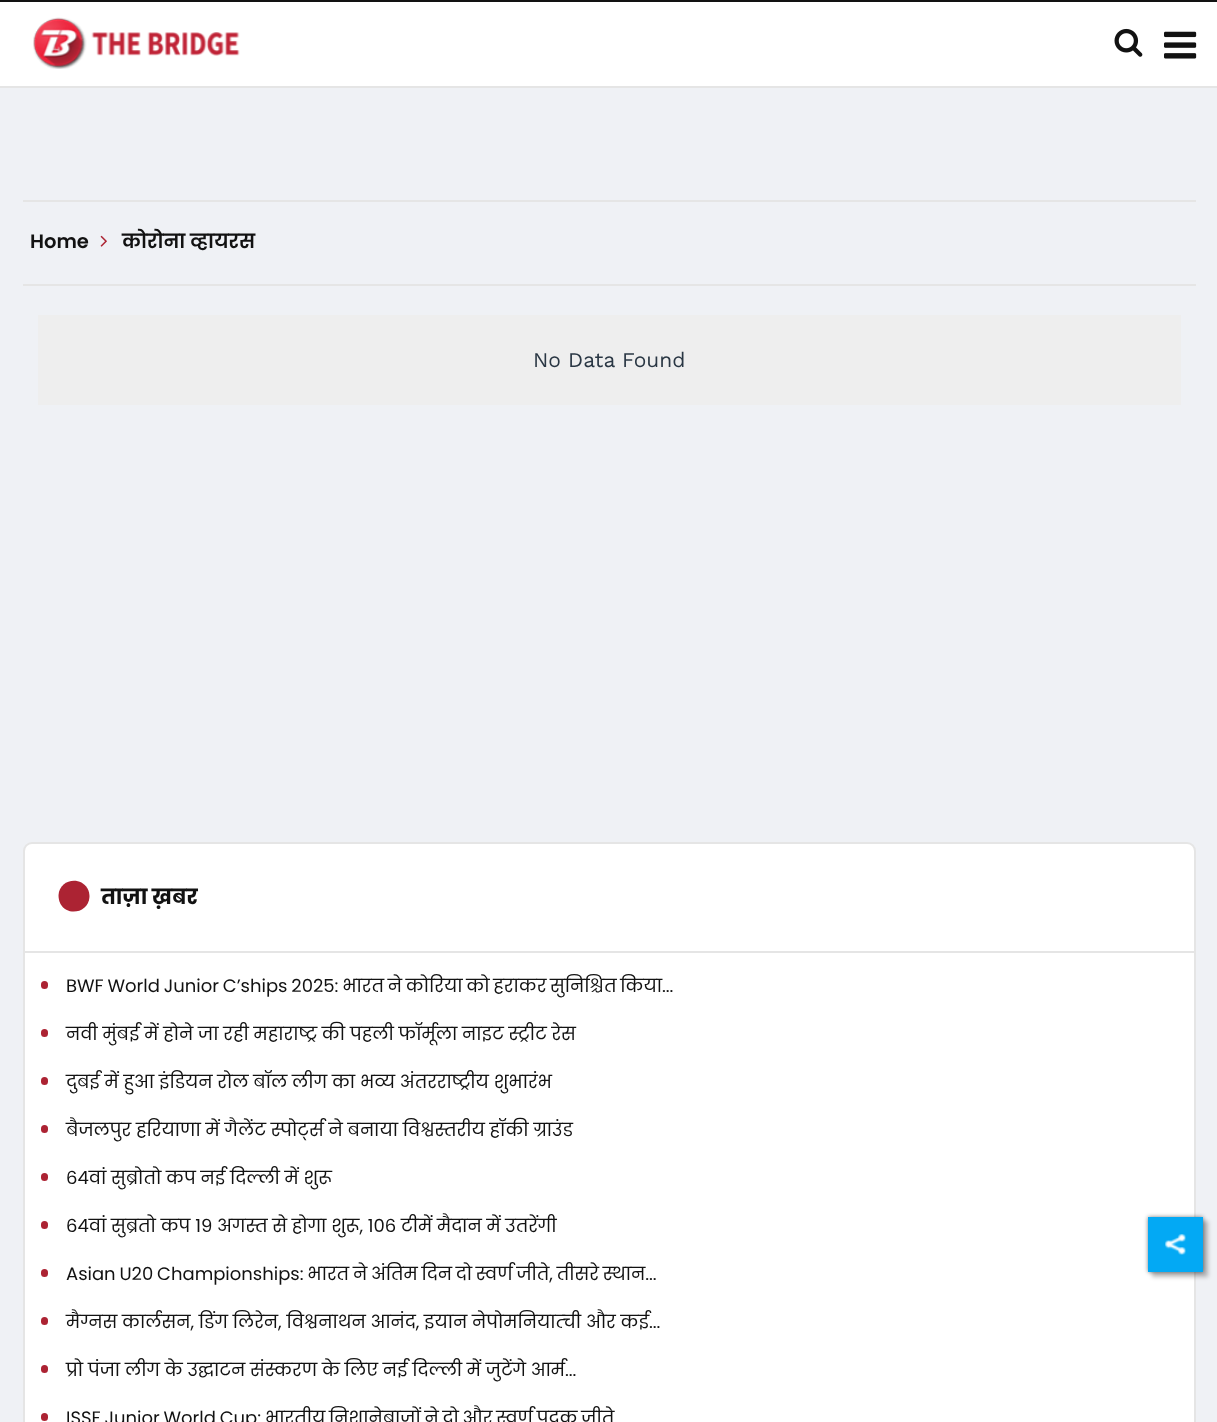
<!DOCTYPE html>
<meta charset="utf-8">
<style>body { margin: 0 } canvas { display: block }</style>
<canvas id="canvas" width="1217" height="1422"></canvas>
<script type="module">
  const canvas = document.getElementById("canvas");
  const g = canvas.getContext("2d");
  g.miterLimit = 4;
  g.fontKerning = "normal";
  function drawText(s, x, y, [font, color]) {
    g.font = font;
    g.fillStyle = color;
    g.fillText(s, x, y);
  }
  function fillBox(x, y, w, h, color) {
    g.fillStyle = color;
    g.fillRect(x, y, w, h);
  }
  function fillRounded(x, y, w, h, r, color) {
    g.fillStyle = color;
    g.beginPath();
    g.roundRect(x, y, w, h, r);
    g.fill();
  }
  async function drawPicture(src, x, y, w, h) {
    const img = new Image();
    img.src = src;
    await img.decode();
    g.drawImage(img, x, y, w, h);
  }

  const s1 = ["600 19.5px Poppins", "#121212"];
  const s2 = ["21px Work Sans", "#2A3744"];
  const s3 = ["bold 21px Poppins", "#121212"];
  const s4 = ["18px Poppins", "#121212"];

  fillBox(0, 0, 1217, 1422, "#EFF1F5");
  fillBox(0, 0, 1217, 2, "#121212");
  fillBox(0, 2, 1217, 84, "#FFFFFF");
  fillBox(0, 86, 1217, 2, "#E5E5E5");
  await drawPicture("pic1.png", 33, 17, 207, 52);
  await drawPicture("pic2.png", 1114, 28, 29, 29);
  await drawPicture("pic3.png", 1164, 31, 33, 28);
  fillBox(23, 200, 1173, 2, "#E5E5E5");
  fillBox(23, 284, 1173, 2, "#E5E5E5");
  drawText("Home", 30, 248, s1);
  await drawPicture("pic4.png", 100, 235, 7, 12);
  drawText("कोरोना व्हायरस", 122, 248, s1);
  fillBox(38, 315, 1143, 90, "#EEEEEE");
  drawText("No Data Found", 533, 367, s2);
  g.fillStyle = "#FFFFFF";
  g.beginPath();
  g.roundRect(24, 843, 1171, 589, 8);
  g.fill();
  g.strokeStyle = "#E5E5E5";
  g.lineWidth = 2;
  g.stroke();
  fillBox(24, 951, 1170, 2, "#E5E5E5");
  g.fillStyle = "#AC2333";
  g.beginPath();
  g.moveTo(87.5, 888.5);
  g.bezierCurveTo(89, 891, 89.5, 894, 89.5, 897);
  g.bezierCurveTo(88.5, 912.5, 68, 917, 60.5, 904);
  g.bezierCurveTo(59, 901, 58.5, 898, 58.5, 895);
  g.bezierCurveTo(59.5, 880, 79.5, 875.5, 87.5, 888.5);
  g.closePath();
  g.fill();
  drawText("ताज़ा ख़बर", 101, 904, s3);
  fillRounded(41, 981, 7, 8, 3.5, "#AC2333");
  g.wordSpacing = "-1px";
  drawText("BWF World Junior C’ships 2025: भारत ने कोरिया को हराकर सुनिश्चित किया...", 66, 992, s4);
  fillRounded(41, 1029, 7, 8, 3.5, "#AC2333");
  g.wordSpacing = "0px";
  drawText("नवी मुंबई में होने जा रही महाराष्ट्र की पहली फॉर्मूला नाइट स्ट्रीट रेस", 66, 1040, s4);
  fillRounded(41, 1077, 7, 8, 3.5, "#AC2333");
  drawText("दुबई में हुआ इंडियन रोल बॉल लीग का भव्य अंतरराष्ट्रीय शुभारंभ", 66, 1088, s4);
  fillRounded(41, 1125, 7, 8, 3.5, "#AC2333");
  drawText("बैजलपुर हरियाणा में गैलेंट स्पोर्ट्स ने बनाया विश्वस्तरीय हॉकी ग्राउंड", 66, 1136, s4);
  fillRounded(41, 1173, 7, 8, 3.5, "#AC2333");
  drawText("64वां सुब्रोतो कप नई दिल्ली में शुरू", 66, 1184, s4);
  fillRounded(41, 1221, 7, 8, 3.5, "#AC2333");
  drawText("64वां सुब्रतो कप 19 अगस्त से होगा शुरू, 106 टीमें मैदान में उतरेंगी", 66, 1232, s4);
  fillRounded(41, 1269, 7, 8, 3.5, "#AC2333");
  g.wordSpacing = "-1px";
  drawText("Asian U20 Championships: भारत ने अंतिम दिन दो स्वर्ण जीते, तीसरे स्थान...", 66, 1280, s4);
  fillRounded(41, 1317, 7, 8, 3.5, "#AC2333");
  g.wordSpacing = "0px";
  drawText("मैग्नस कार्लसन, डिंग लिरेन, विश्वनाथन आनंद, इयान नेपोमनियात्ची और कई...", 66, 1328, s4);
  fillRounded(41, 1365, 7, 8, 3.5, "#AC2333");
  drawText("प्रो पंजा लीग के उद्घाटन संस्करण के लिए नई दिल्ली में जुटेंगे आर्म...", 66, 1376, s4);
  fillRounded(41, 1413, 7, 8, 3.5, "#AC2333");
  g.wordSpacing = "-1px";
  drawText("ISSF Junior World Cup: भारतीय निशानेबाजों ने दो और स्वर्ण पदक जीते", 66, 1424, s4);
  g.fillStyle = "rgba(0, 0, 0, 0.25)";
  g.filter = "blur(2px)";
  g.beginPath();
  g.rect(1152, 1221, 56, 56);
  g.fill();
  g.filter = "none";
  g.fillStyle = "rgba(0, 0, 0, 0.5)";
  g.filter = "blur(2px)";
  g.beginPath();
  g.rect(1148, 1217, 55, 55);
  g.fill();
  g.filter = "none";
  fillBox(1148, 1217, 55, 55, "#03A9F4");
  await drawPicture("pic5.png", 1165, 1234, 21, 21);
</script>
